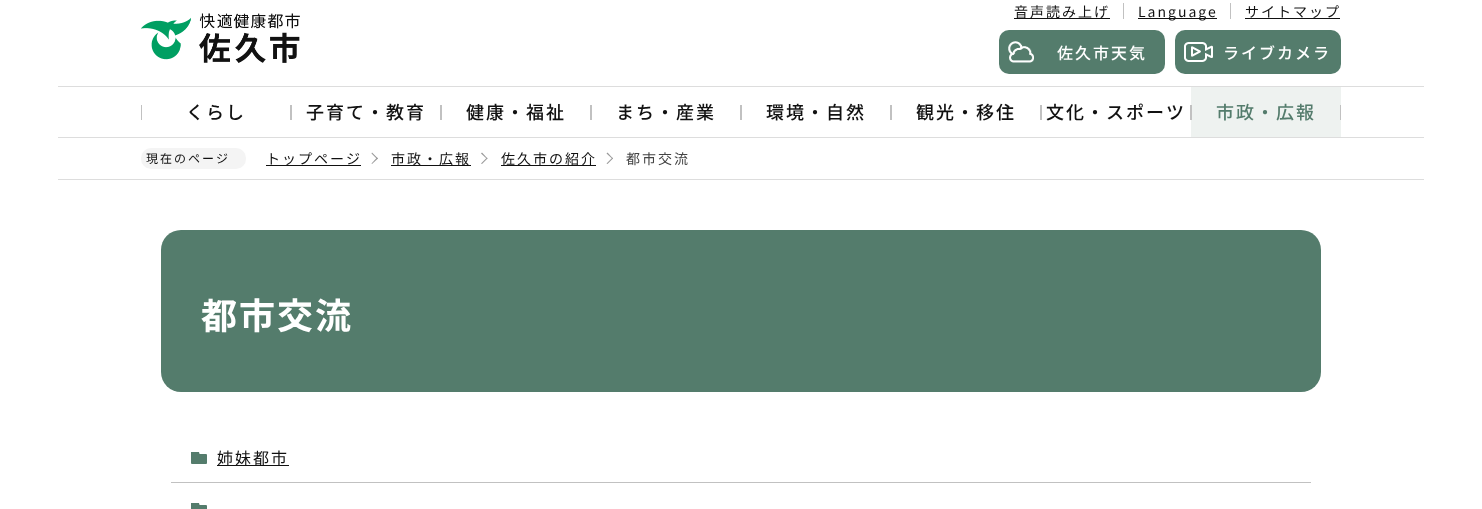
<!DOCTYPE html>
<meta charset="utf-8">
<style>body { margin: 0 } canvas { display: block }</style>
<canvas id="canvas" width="1482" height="509"></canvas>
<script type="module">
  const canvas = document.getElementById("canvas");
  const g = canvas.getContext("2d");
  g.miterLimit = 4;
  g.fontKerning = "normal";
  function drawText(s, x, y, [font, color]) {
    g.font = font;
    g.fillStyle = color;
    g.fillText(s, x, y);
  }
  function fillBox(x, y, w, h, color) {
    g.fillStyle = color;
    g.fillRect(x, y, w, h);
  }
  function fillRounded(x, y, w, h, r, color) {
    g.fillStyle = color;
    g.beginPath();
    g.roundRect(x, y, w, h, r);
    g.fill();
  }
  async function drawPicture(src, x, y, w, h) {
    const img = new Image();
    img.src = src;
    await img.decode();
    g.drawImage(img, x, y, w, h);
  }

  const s1 = ["14px Noto Sans JP", "#111111"];
  const s2 = ["500 16px Noto Sans JP", "#FFFFFF"];
  const s3 = ["500 18px Noto Sans JP", "#111111"];
  const s4 = ["500 18px Noto Sans JP", "#547C6C"];
  const s5 = ["12px Noto Sans JP", "#111111"];
  const s6 = ["14px Noto Sans JP", "#444444"];
  const s7 = ["bold 36px Noto Sans JP", "#FFFFFF"];
  const s8 = ["16px Noto Sans JP", "#111111"];

  fillBox(0, 0, 1482, 509, "#FFFFFF");
  fillBox(58, 86, 1366, 1, "#DDDDDD");
  await drawPicture("pic1.png", 141, 13, 159, 50);
  fillBox(1014, 18, 96, 1, "#111111");
  g.letterSpacing = "2px";
  drawText("音声読み上げ", 1014, 17, s1);
  fillBox(1123, 3, 1, 16, "#C1C1C1");
  fillBox(1138, 18, 79, 1, "#111111");
  drawText("Language", 1138, 17, s1);
  fillBox(1230, 3, 1, 16, "#C1C1C1");
  fillBox(1245, 18, 95, 1, "#111111");
  drawText("サイトマップ", 1245, 17, s1);
  fillRounded(999, 30, 166, 44, 10, "#547C6C");
  await drawPicture("pic2.png", 1008, 41, 26, 22);
  drawText("佐久市天気", 1057, 59, s2);
  fillRounded(1175, 30, 166, 44, 10, "#547C6C");
  await drawPicture("pic3.png", 1184, 42, 29, 20);
  drawText("ライブカメラ", 1223, 59, s2);
  fillBox(141, 105, 1, 15, "#C1C1C1");
  drawText("くらし", 186, 119, s3);
  fillBox(290, 105, 2, 15, "#C1C1C1");
  drawText("子育て・教育", 306, 119, s3);
  fillBox(440, 105, 2, 15, "#C1C1C1");
  drawText("健康・福祉", 466, 119, s3);
  fillBox(590, 105, 2, 15, "#C1C1C1");
  drawText("まち・産業", 616, 119, s3);
  fillBox(740, 105, 2, 15, "#C1C1C1");
  drawText("環境・自然", 766, 119, s3);
  fillBox(890, 105, 2, 15, "#C1C1C1");
  drawText("観光・移住", 916, 119, s3);
  fillBox(1040, 105, 2, 15, "#C1C1C1");
  drawText("文化・スポーツ", 1046, 119, s3);
  fillBox(1190, 105, 1, 15, "#C1C1C1");
  fillBox(1191, 87, 150, 50, "#EEF2F0");
  fillBox(1191, 105, 1, 15, "#C1C1C1");
  drawText("市政・広報", 1216, 119, s4);
  fillBox(1340, 105, 1, 15, "#C1C1C1");
  fillBox(58, 137, 1366, 1, "#DDDDDD");
  fillBox(58, 179, 1366, 1, "#DDDDDD");
  fillRounded(141, 148, 105, 21, 10, "#F4F4F4");
  drawText("現在のページ", 146, 163, s5);
  drawText("トップページ", 266, 164, s1);
  fillBox(266, 165, 95, 1, "#111111");
  g.fillStyle = "#999999";
  g.beginPath();
  g.moveTo(372, 152.5);
  g.lineTo(378, 158.5);
  g.lineTo(377, 159);
  g.lineTo(371.5, 153.5);
  g.closePath();
  g.fill();
  g.beginPath();
  g.moveTo(377, 157.5);
  g.lineTo(378, 158.5);
  g.lineTo(372, 164);
  g.lineTo(371.5, 163.5);
  g.closePath();
  g.fill();
  fillBox(391, 165, 80, 1, "#111111");
  drawText("市政・広報", 391, 164, s1);
  g.fillStyle = "#999999";
  g.beginPath();
  g.moveTo(482, 152.5);
  g.lineTo(487.5, 158.5);
  g.lineTo(487, 159);
  g.lineTo(481, 153.5);
  g.closePath();
  g.fill();
  g.beginPath();
  g.moveTo(487, 157.5);
  g.lineTo(487.5, 158.5);
  g.lineTo(482, 164);
  g.lineTo(481, 163.5);
  g.closePath();
  g.fill();
  fillBox(501, 165, 95, 1, "#111111");
  drawText("佐久市の紹介", 501, 164, s1);
  g.fillStyle = "#999999";
  g.beginPath();
  g.moveTo(607.5, 152.5);
  g.lineTo(613, 158.5);
  g.lineTo(612.5, 159);
  g.lineTo(606.5, 153.5);
  g.closePath();
  g.fill();
  g.beginPath();
  g.moveTo(612.5, 157.5);
  g.lineTo(613, 158.5);
  g.lineTo(607.5, 164);
  g.lineTo(606.5, 163.5);
  g.closePath();
  g.fill();
  drawText("都市交流", 626, 164, s6);
  fillRounded(161, 230, 1160, 162, 20, "#547C6C");
  drawText("都市交流", 201, 329, s7);
  fillBox(171, 482, 1140, 1, "#C1C1C1");
  await drawPicture("pic4.png", 191, 452, 16, 12);
  fillBox(217, 465, 72, 1, "#111111");
  drawText("姉妹都市", 217, 464, s8);
  await drawPicture("pic5.png", 191, 503, 16, 6);
</script>
